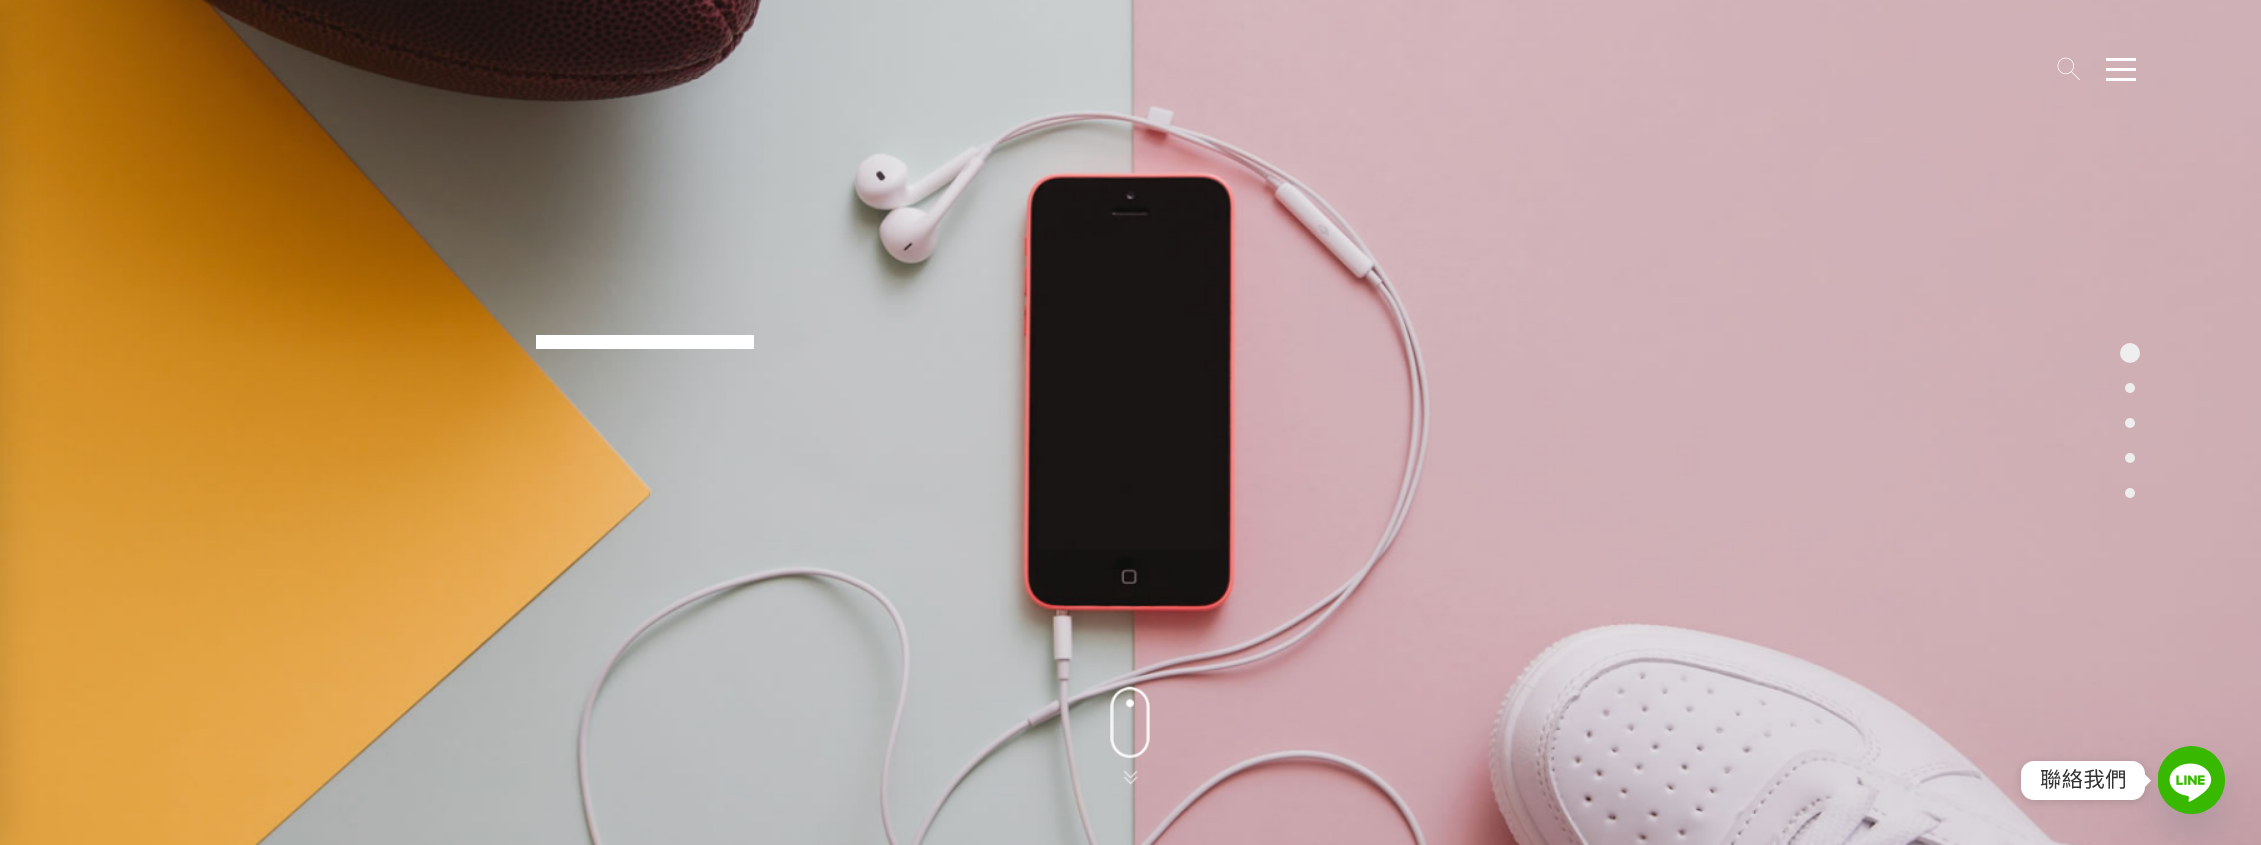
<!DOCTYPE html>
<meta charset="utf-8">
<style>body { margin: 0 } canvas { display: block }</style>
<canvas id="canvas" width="2261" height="845"></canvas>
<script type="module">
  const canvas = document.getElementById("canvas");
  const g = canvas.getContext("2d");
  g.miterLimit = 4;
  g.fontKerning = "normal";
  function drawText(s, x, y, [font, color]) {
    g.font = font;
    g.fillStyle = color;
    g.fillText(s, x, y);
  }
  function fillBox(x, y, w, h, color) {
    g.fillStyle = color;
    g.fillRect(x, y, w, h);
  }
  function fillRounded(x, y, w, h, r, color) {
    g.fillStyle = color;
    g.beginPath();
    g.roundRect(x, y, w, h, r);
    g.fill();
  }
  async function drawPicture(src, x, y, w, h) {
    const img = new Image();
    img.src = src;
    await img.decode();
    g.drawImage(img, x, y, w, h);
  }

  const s1 = ["21.25px Noto Sans CJK TC", "#333333"];

  fillBox(0, 0, 2261, 845, "#FFFFFF");
  await drawPicture("pic1.png", 0, 0, 2261, 845);
  fillBox(536, 335, 218, 14, "#FFFFFF");
  await drawPicture("pic2.png", 1110, 686, 40, 99);
  await drawPicture("pic3.png", 2057, 57, 23, 24);
  fillBox(2106, 68, 30, 3, "#FFFFFF");
  fillBox(2106, 58, 30, 3, "#FFFFFF");
  fillBox(2106, 78, 30, 3, "#FFFFFF");
  g.fillStyle = "rgba(0, 0, 0, 0.12)";
  g.filter = "blur(18px)";
  g.beginPath();
  g.rect(-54, 1, 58, 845);
  g.fill();
  g.filter = "none";
  g.fillStyle = "#EEEEEE";
  g.beginPath();
  g.arc(2130, 353, 10, 0, Math.PI * 2);
  g.fill();
  g.beginPath();
  g.arc(2130, 388, 5, 0, Math.PI * 2);
  g.fill();
  g.beginPath();
  g.arc(2130, 423, 5, 0, Math.PI * 2);
  g.fill();
  g.beginPath();
  g.arc(2130, 458, 5, 0, Math.PI * 2);
  g.fill();
  g.beginPath();
  g.arc(2130, 493, 5, 0, Math.PI * 2);
  g.fill();
  g.fillStyle = "rgba(73, 104, 126, 0.16)";
  g.filter = "blur(15px)";
  g.beginPath();
  g.roundRect(2158, 766, 67, 68, 33.5);
  g.fill();
  g.filter = "none";
  fillRounded(2158, 746, 67, 68, 33.5, "#38B900");
  await drawPicture("pic4.png", 2158, 746, 67, 68);
  g.fillStyle = "rgba(0, 0, 0, 0.15)";
  g.filter = "blur(5px)";
  g.beginPath();
  g.roundRect(2021, 763, 124, 38, 13);
  g.fill();
  g.filter = "none";
  fillRounded(2021, 761, 124, 39, 13, "#FFFFFF");
  g.letterSpacing = "0.5px";
  drawText("聯絡我們", 2040, 787, s1);
  g.fillStyle = "#FFFFFF";
  g.beginPath();
  g.moveTo(2145, 787);
  g.lineTo(2145, 774.5);
  g.lineTo(2151, 780.5);
  g.closePath();
  g.fill();
</script>
